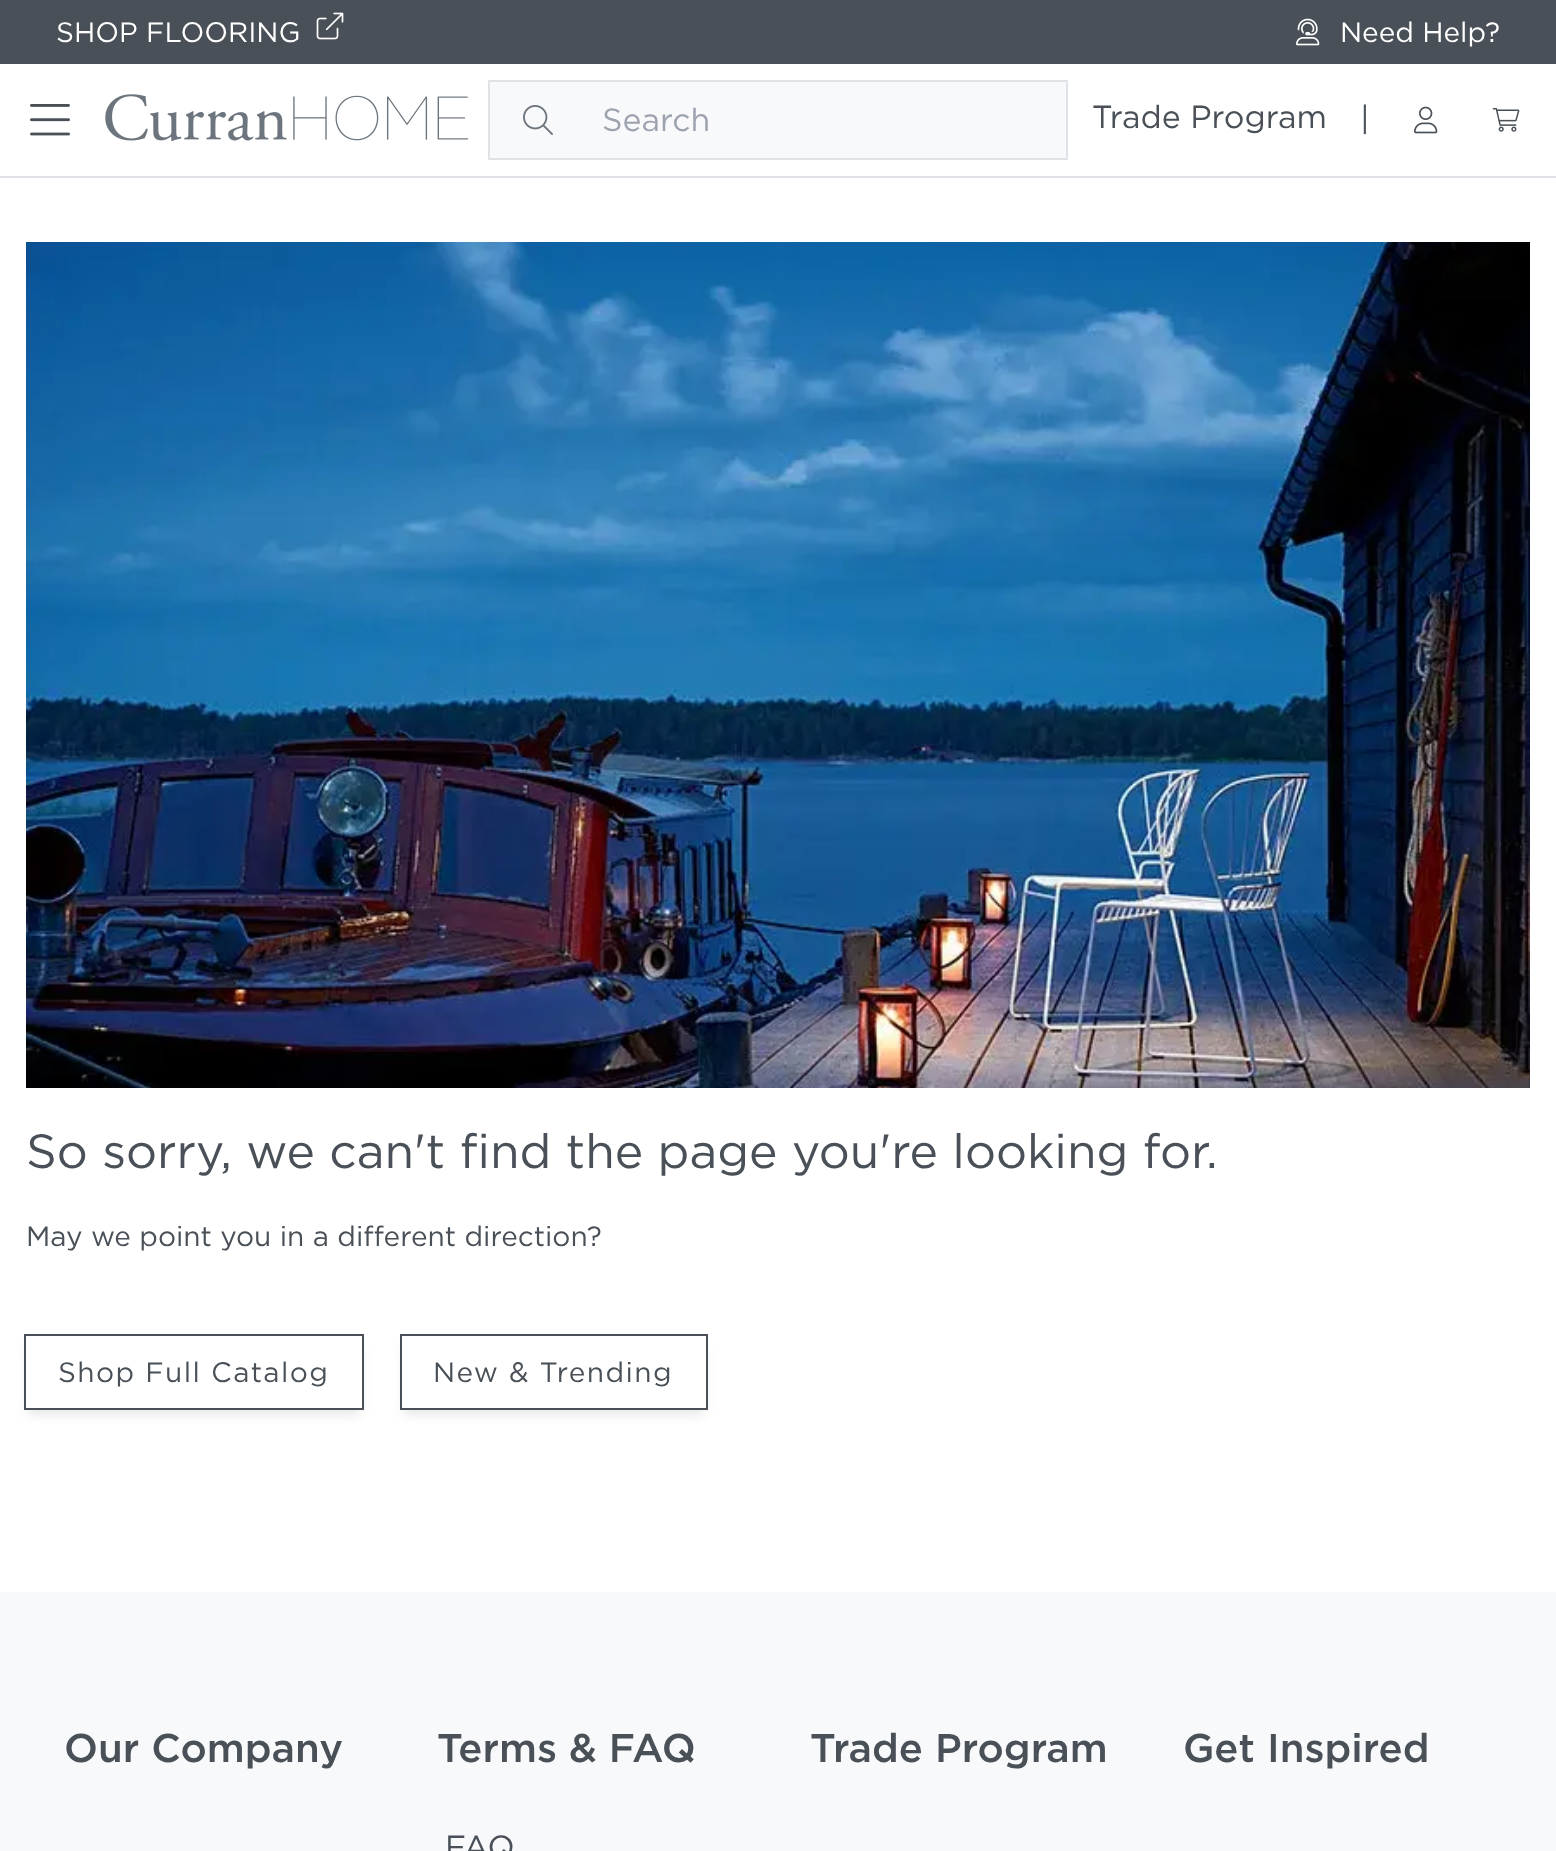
<!DOCTYPE html>
<meta charset="utf-8">
<style>body { margin: 0 } canvas { display: block }</style>
<canvas id="canvas" width="1556" height="1851"></canvas>
<script type="module">
  const canvas = document.getElementById("canvas");
  const g = canvas.getContext("2d");
  g.miterLimit = 4;
  g.fontKerning = "normal";
  function drawText(s, x, y, [font, color]) {
    g.font = font;
    g.fillStyle = color;
    g.fillText(s, x, y);
  }
  function fillBox(x, y, w, h, color) {
    g.fillStyle = color;
    g.fillRect(x, y, w, h);
  }
  async function drawPicture(src, x, y, w, h) {
    const img = new Image();
    img.src = src;
    await img.decode();
    g.drawImage(img, x, y, w, h);
  }

  const s1 = ["28px Gotham", "#FFFFFF"];
  const s2 = ["32px Gotham", "#9CA3AF"];
  const s3 = ["32px Gotham", "#495057"];
  const s4 = ["48px Gotham", "#495057"];
  const s5 = ["28px Gotham", "#495057"];
  const s6 = ["500 40px Gotham", "#495057"];

  fillBox(0, 0, 1556, 1851, "#FFFFFF");
  fillBox(0, 176, 1556, 2, "#DFE2E6");
  fillBox(0, 0, 1556, 64, "#495057");
  drawText("SHOP FLOORING", 56, 42, s1);
  await drawPicture("pic1.png", 316, 12, 28, 28);
  await drawPicture("pic2.png", 1296, 18, 24, 28);
  drawText("Need Help?", 1340, 42, s1);
  await drawPicture("pic3.png", 30, 104, 40, 32);
  await drawPicture("pic4.png", 105, 94, 364, 47);
  g.fillStyle = "#F8F9FA";
  g.beginPath();
  g.rect(489, 81, 578, 78);
  g.fill();
  g.strokeStyle = "#DFE2E6";
  g.lineWidth = 2;
  g.stroke();
  await drawPicture("pic5.png", 523, 105, 30, 30);
  drawText("Search", 602, 131, s2);
  drawText("Trade Program", 1092, 128, s3);
  drawText("|", 1360, 130, s3);
  await drawPicture("pic6.png", 1414, 106, 24, 28);
  await drawPicture("pic7.png", 1492, 108, 28, 24);
  await drawPicture("pic8.png", 26, 242, 1504, 846);
  drawText("So sorry, we can't find the page you're looking for.", 26, 1168, s4);
  drawText("May we point you in a different direction?", 26, 1246, s5);
  g.save();
  g.beginPath();
  g.moveTo(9, 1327);
  g.lineTo(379, 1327);
  g.lineTo(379, 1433);
  g.lineTo(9, 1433);
  g.closePath();
  g.moveTo(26, 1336);
  g.lineTo(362, 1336);
  g.lineTo(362, 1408);
  g.lineTo(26, 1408);
  g.closePath();
  g.clip("evenodd");
  g.fillStyle = "rgba(0, 0, 0, 0.1)";
  g.filter = "blur(6px)";
  g.beginPath();
  g.rect(28, 1346, 332, 68);
  g.fill();
  g.filter = "none";
  g.restore();
  g.strokeStyle = "#495057";
  g.strokeRect(25, 1335, 338, 74);
  g.letterSpacing = "1.4px";
  drawText("Shop Full Catalog", 58, 1382, s5);
  g.save();
  g.beginPath();
  g.moveTo(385, 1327);
  g.lineTo(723, 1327);
  g.lineTo(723, 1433);
  g.lineTo(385, 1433);
  g.closePath();
  g.moveTo(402, 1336);
  g.lineTo(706, 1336);
  g.lineTo(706, 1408);
  g.lineTo(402, 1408);
  g.closePath();
  g.clip("evenodd");
  g.fillStyle = "rgba(0, 0, 0, 0.1)";
  g.filter = "blur(6px)";
  g.beginPath();
  g.rect(404, 1346, 300, 68);
  g.fill();
  g.filter = "none";
  g.restore();
  g.strokeRect(401, 1335, 306, 74);
  drawText("New & Trending", 433, 1382, s5);
  fillBox(0, 1592, 1556, 259, "#F8F9FA");
  g.letterSpacing = "0px";
  drawText("Our Company", 64, 1762, s6);
  drawText("Terms & FAQ", 437, 1762, s6);
  drawText("FAQ", 445, 1858, s3);
  drawText("Trade Program", 810, 1762, s6);
  drawText("Get Inspired", 1183, 1762, s6);
</script>
